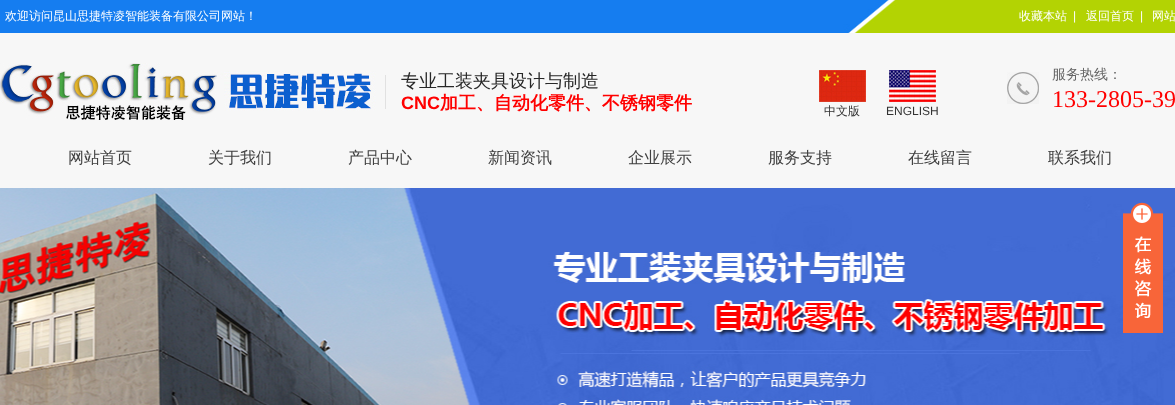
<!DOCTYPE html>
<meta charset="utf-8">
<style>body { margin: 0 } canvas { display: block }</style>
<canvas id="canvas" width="1175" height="405"></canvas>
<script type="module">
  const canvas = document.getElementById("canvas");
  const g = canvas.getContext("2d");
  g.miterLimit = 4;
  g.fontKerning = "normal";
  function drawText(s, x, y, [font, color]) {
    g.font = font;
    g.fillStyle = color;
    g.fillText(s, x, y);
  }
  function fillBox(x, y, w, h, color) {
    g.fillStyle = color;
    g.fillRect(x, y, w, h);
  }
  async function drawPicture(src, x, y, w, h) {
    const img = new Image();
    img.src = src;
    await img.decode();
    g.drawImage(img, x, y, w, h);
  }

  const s1 = ["500 12px WenQuanYi Zen Hei", "#FFFFFF"];
  const s2 = ["12px Liberation Sans", "#FFFFFF"];
  const s3 = ["500 18px WenQuanYi Zen Hei", "#272727"];
  const s4 = ["bold 18px Liberation Sans", "#FF0000"];
  const s5 = ["bold 18px WenQuanYi Zen Hei", "#FF0000"];
  const s6 = ["500 12px WenQuanYi Zen Hei", "#333333"];
  const s7 = ["12px Liberation Sans", "#333333"];
  const s8 = ["500 14px WenQuanYi Zen Hei", "#666666"];
  const s9 = ["24px Liberation Serif", "#FF0000"];
  const s10 = ["500 16px WenQuanYi Zen Hei", "#404040"];

  fillBox(0, 0, 1175, 405, "#FFFFFF");
  await drawPicture("pic1.png", 0, 0, 1175, 33);
  drawText("欢迎访问昆山思捷特凌智能装备有限公司网站！", 5, 20, s1);
  drawText("收藏本站", 1019, 20, s1);
  drawText("|", 1073, 20, s2);
  drawText("返回首页", 1086, 20, s1);
  drawText("|", 1140, 20, s2);
  drawText("网站", 1152, 20, s1);
  fillBox(0, 33, 1175, 155, "#F7F7F7");
  await drawPicture("pic2.png", 0, 63, 386, 57);
  drawText("专业工装夹具设计与制造", 401, 87, s3);
  drawText("CNC", 401, 109, s4);
  drawText("加工、自动化零件、不锈钢零件", 440, 109, s5);
  await drawPicture("pic3.png", 819, 70, 47, 32);
  drawText("中文版", 824, 115, s6);
  await drawPicture("pic4.png", 889, 70, 47, 32);
  drawText("ENGLISH", 886, 115, s7);
  await drawPicture("pic5.png", 1007, 72, 32, 32);
  drawText("服务热线：", 1052, 79, s8);
  drawText("133-2805-39", 1052, 107, s9);
  drawText("网站首页", 68, 163, s10);
  drawText("关于我们", 208, 163, s10);
  drawText("产品中心", 348, 163, s10);
  drawText("新闻资讯", 488, 163, s10);
  drawText("企业展示", 628, 163, s10);
  drawText("服务支持", 768, 163, s10);
  drawText("在线留言", 908, 163, s10);
  drawText("联系我们", 1048, 163, s10);
  await drawPicture("pic6.png", 0, 188, 1175, 217);
  await drawPicture("pic7.png", 1123, 202, 40, 131);
</script>
